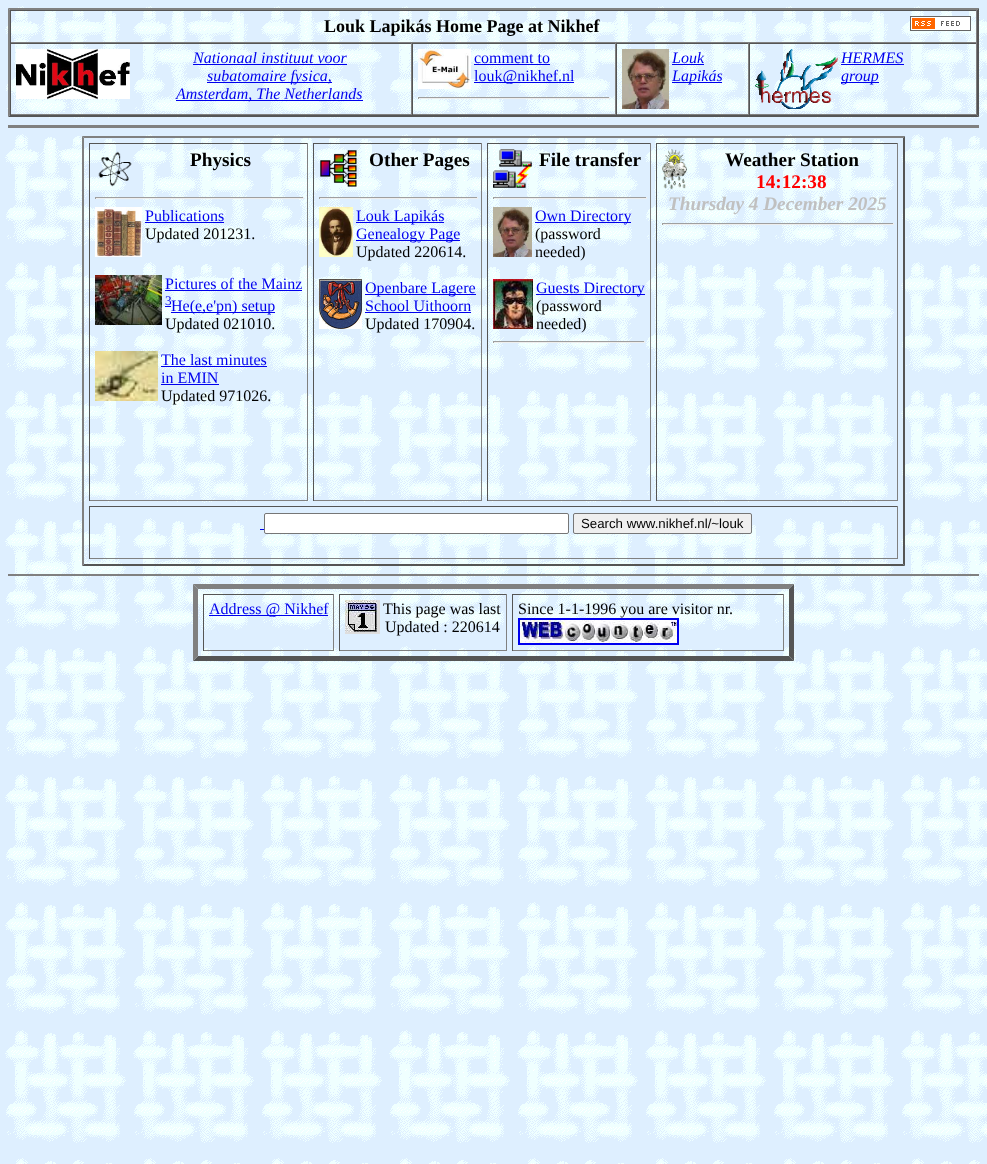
<!DOCTYPE html>
<meta charset="utf-8">
<style>body { margin: 0 } canvas { display: block }</style>
<canvas id="canvas" width="987" height="1164"></canvas>
<script type="module">
  const canvas = document.getElementById("canvas");
  const g = canvas.getContext("2d");
  g.miterLimit = 4;
  g.fontKerning = "normal";
  function drawText(s, x, y, [font, color]) {
    g.font = font;
    g.fillStyle = color;
    g.fillText(s, x, y);
  }
  function fillBox(x, y, w, h, color) {
    g.fillStyle = color;
    g.fillRect(x, y, w, h);
  }
  async function drawPicture(src, x, y, w, h) {
    const img = new Image();
    img.src = src;
    await img.decode();
    g.drawImage(img, x, y, w, h);
  }

  const s1 = ["bold 18px Liberation Serif", "#000000"];
  const s2 = ["italic 16px Liberation Serif", "#0000EE"];
  const s3 = ["16px Liberation Serif", "#0000EE"];
  const s4 = ["bold 19.25px Liberation Serif", "#000000"];
  const s5 = ["16px Liberation Serif", "#000000"];
  const s6 = ["13.25px Liberation Serif", "#0000EE"];
  const s7 = ["bold 19.25px Liberation Serif", "#FF0000"];
  const s8 = ["italic bold 19.25px Liberation Serif", "#C0C0C0"];
  const s9 = ["13.25px Liberation Sans", "#000000"];

  fillBox(0, 0, 987, 1164, "#FFFFFF");
  await drawPicture("pic1.png", 0, 0, 987, 1164);
  g.fillStyle = "#808080";
  g.beginPath();
  g.moveTo(8, 8);
  g.lineTo(979, 8);
  g.lineTo(977, 10);
  g.lineTo(10, 10);
  g.closePath();
  g.fill();
  g.fillStyle = "#555555";
  g.beginPath();
  g.moveTo(979, 8);
  g.lineTo(979, 117);
  g.lineTo(977, 115);
  g.lineTo(977, 10);
  g.closePath();
  g.fill();
  g.beginPath();
  g.moveTo(979, 117);
  g.lineTo(8, 117);
  g.lineTo(10, 115);
  g.lineTo(977, 115);
  g.closePath();
  g.fill();
  g.fillStyle = "#808080";
  g.beginPath();
  g.moveTo(8, 117);
  g.lineTo(8, 8);
  g.lineTo(10, 10);
  g.lineTo(10, 115);
  g.closePath();
  g.fill();
  fillBox(10, 10, 967, 1, "#555555");
  fillBox(976, 10, 1, 33, "#808080");
  fillBox(10, 42, 967, 1, "#808080");
  fillBox(10, 10, 1, 33, "#555555");
  drawText("Louk Lapikás Home Page at Nikhef", 324, 32, s1);
  await drawPicture("pic2.png", 910, 16, 61, 15);
  fillBox(10, 43, 967, 1, "#555555");
  fillBox(411, 43, 1, 72, "#808080");
  fillBox(10, 114, 402, 1, "#808080");
  fillBox(10, 43, 1, 72, "#555555");
  await drawPicture("pic3.png", 16, 49, 114, 50);
  drawText("Nationaal instituut voor", 193, 63, s2);
  fillBox(193, 64, 154, 1, "#0000EE");
  fillBox(207, 82, 125, 1, "#0000EE");
  drawText("subatomaire fysica,", 207, 81, s2);
  fillBox(176, 100, 187, 1, "#0000EE");
  drawText("Amsterdam, The Netherlands", 176, 99, s2);
  fillBox(615, 43, 1, 72, "#808080");
  fillBox(412, 114, 204, 1, "#808080");
  fillBox(412, 43, 1, 72, "#555555");
  await drawPicture("pic4.png", 418, 49, 53, 40);
  drawText("comment to", 474, 63, s3);
  fillBox(474, 64, 76, 1, "#0000EE");
  fillBox(474, 82, 100, 1, "#0000EE");
  drawText("louk@nikhef.nl", 474, 81, s3);
  fillBox(418, 97, 192, 1, "#9F9F9F");
  fillBox(609, 97, 1, 2, "#EEEEEE");
  fillBox(418, 98, 192, 1, "#EEEEEE");
  fillBox(418, 97, 1, 2, "#9F9F9F");
  fillBox(748, 43, 1, 72, "#808080");
  fillBox(616, 114, 133, 1, "#808080");
  fillBox(616, 43, 1, 72, "#555555");
  await drawPicture("pic5.png", 622, 49, 47, 60);
  drawText("Louk", 672, 63, s2);
  fillBox(672, 64, 32, 1, "#0000EE");
  fillBox(672, 82, 50, 1, "#0000EE");
  drawText("Lapikás", 672, 81, s2);
  fillBox(976, 43, 1, 72, "#808080");
  fillBox(749, 114, 228, 1, "#808080");
  fillBox(749, 43, 1, 72, "#555555");
  await drawPicture("pic6.png", 755, 49, 83, 60);
  drawText("HERMES", 841, 63, s2);
  fillBox(841, 64, 63, 1, "#0000EE");
  fillBox(841, 82, 38, 1, "#0000EE");
  drawText("group", 841, 81, s2);
  fillBox(8, 125, 971, 3, "#808080");
  g.beginPath();
  g.moveTo(82, 136);
  g.lineTo(905, 136);
  g.lineTo(903, 138);
  g.lineTo(84, 138);
  g.closePath();
  g.fill();
  g.fillStyle = "#555555";
  g.beginPath();
  g.moveTo(905, 136);
  g.lineTo(905, 566);
  g.lineTo(903, 564);
  g.lineTo(903, 138);
  g.closePath();
  g.fill();
  g.beginPath();
  g.moveTo(905, 566);
  g.lineTo(82, 566);
  g.lineTo(84, 564);
  g.lineTo(903, 564);
  g.closePath();
  g.fill();
  g.fillStyle = "#808080";
  g.beginPath();
  g.moveTo(82, 566);
  g.lineTo(82, 136);
  g.lineTo(84, 138);
  g.lineTo(84, 564);
  g.closePath();
  g.fill();
  fillBox(89, 143, 219, 1, "#555555");
  fillBox(307, 143, 1, 358, "#808080");
  fillBox(89, 500, 219, 1, "#808080");
  fillBox(89, 143, 1, 358, "#555555");
  await drawPicture("pic7.png", 98, 151, 34, 36);
  drawText("Physics", 190, 166, s4);
  fillBox(95, 197, 209, 1, "#9F9F9F");
  fillBox(303, 197, 1, 2, "#EEEEEE");
  fillBox(95, 198, 209, 1, "#EEEEEE");
  fillBox(95, 197, 1, 2, "#9F9F9F");
  await drawPicture("pic8.png", 95, 207, 47, 50);
  drawText("Publications", 145, 221, s3);
  fillBox(145, 222, 79, 1, "#0000EE");
  drawText("Updated 201231.", 145, 239, s5);
  await drawPicture("pic9.png", 95, 275, 67, 50);
  drawText("Pictures of the Mainz", 165, 289, s3);
  fillBox(165, 290, 137, 1, "#0000EE");
  drawText("3", 165, 305, s6);
  fillBox(165, 306, 6, 1, "#0000EE");
  fillBox(171, 312, 104, 1, "#0000EE");
  drawText("He(e,e'pn) setup", 171, 311, s3);
  drawText("Updated 021010.", 165, 329, s5);
  await drawPicture("pic10.png", 95, 351, 63, 50);
  drawText("The last minutes", 161, 365, s3);
  fillBox(161, 366, 106, 1, "#0000EE");
  drawText("in EMIN", 161, 383, s3);
  fillBox(161, 384, 58, 1, "#0000EE");
  drawText("Updated 971026.", 161, 401, s5);
  fillBox(313, 143, 169, 1, "#555555");
  fillBox(481, 143, 1, 358, "#808080");
  fillBox(313, 500, 169, 1, "#808080");
  fillBox(313, 143, 1, 358, "#555555");
  await drawPicture("pic11.png", 320, 150, 37, 37);
  drawText("Other Pages", 369, 166, s4);
  fillBox(319, 197, 159, 1, "#9F9F9F");
  fillBox(477, 197, 1, 2, "#EEEEEE");
  fillBox(319, 198, 159, 1, "#EEEEEE");
  fillBox(319, 197, 1, 2, "#9F9F9F");
  await drawPicture("pic12.png", 319, 207, 34, 50);
  fillBox(356, 222, 88, 1, "#0000EE");
  drawText("Louk Lapikás", 356, 221, s3);
  fillBox(356, 240, 104, 1, "#0000EE");
  drawText("Genealogy Page", 356, 239, s3);
  drawText("Updated 220614.", 356, 257, s5);
  await drawPicture("pic13.png", 319, 279, 43, 50);
  fillBox(365, 294, 111, 1, "#0000EE");
  drawText("Openbare Lagere", 365, 293, s3);
  drawText("School Uithoorn", 365, 311, s3);
  fillBox(365, 312, 106, 1, "#0000EE");
  drawText("Updated 170904.", 365, 329, s5);
  fillBox(487, 143, 164, 1, "#555555");
  fillBox(650, 143, 1, 358, "#808080");
  fillBox(487, 500, 164, 1, "#808080");
  fillBox(487, 143, 1, 358, "#555555");
  await drawPicture("pic14.png", 493, 149, 39, 39);
  drawText("File transfer", 539, 166, s4);
  fillBox(493, 197, 154, 1, "#9F9F9F");
  fillBox(646, 197, 1, 2, "#EEEEEE");
  fillBox(493, 198, 154, 1, "#EEEEEE");
  fillBox(493, 197, 1, 2, "#9F9F9F");
  await drawPicture("pic15.png", 493, 207, 39, 50);
  fillBox(535, 222, 96, 1, "#0000EE");
  drawText("Own Directory", 535, 221, s3);
  drawText("(password", 535, 239, s5);
  drawText("needed)", 535, 257, s5);
  await drawPicture("pic16.png", 493, 279, 40, 50);
  fillBox(536, 294, 109, 1, "#0000EE");
  drawText("Guests Directory", 536, 293, s3);
  drawText("(password", 536, 311, s5);
  drawText("needed)", 536, 329, s5);
  fillBox(493, 341, 152, 1, "#9F9F9F");
  fillBox(644, 341, 1, 2, "#EEEEEE");
  fillBox(493, 342, 152, 1, "#EEEEEE");
  fillBox(493, 341, 1, 2, "#9F9F9F");
  fillBox(656, 143, 242, 1, "#555555");
  fillBox(897, 143, 1, 358, "#808080");
  fillBox(656, 500, 242, 1, "#808080");
  fillBox(656, 143, 1, 358, "#555555");
  await drawPicture("pic17.png", 662, 149, 25, 40);
  drawText("Weather Station", 725, 166, s4);
  drawText("14:12:38", 756, 188, s7);
  drawText("Thursday 4 December 2025", 668, 210, s8);
  fillBox(662, 223, 232, 1, "#9F9F9F");
  fillBox(893, 223, 1, 2, "#EEEEEE");
  fillBox(662, 224, 232, 1, "#EEEEEE");
  fillBox(662, 223, 1, 2, "#9F9F9F");
  fillBox(89, 506, 809, 1, "#555555");
  fillBox(897, 506, 1, 53, "#808080");
  fillBox(89, 558, 809, 1, "#808080");
  fillBox(89, 506, 1, 53, "#555555");
  g.fillStyle = "#FFFFFF";
  g.beginPath();
  g.roundRect(264.5, 513.5, 304, 20, 1.5);
  g.fill();
  g.strokeStyle = "#767676";
  g.stroke();
  g.fillStyle = "#EFEFEF";
  g.beginPath();
  g.roundRect(573.5, 513.5, 178, 20, 1.5);
  g.fill();
  g.stroke();
  drawText("Search www.nikhef.nl/~louk", 581, 528, s9);
  fillBox(260, 529, 4, 1, "#0000EE");
  fillBox(8, 574, 971, 2, "#808080");
  g.beginPath();
  g.moveTo(193, 584);
  g.lineTo(794, 584);
  g.lineTo(789, 589);
  g.lineTo(198, 589);
  g.closePath();
  g.fill();
  g.fillStyle = "#555555";
  g.beginPath();
  g.moveTo(794, 584);
  g.lineTo(794, 661);
  g.lineTo(789, 656);
  g.lineTo(789, 589);
  g.closePath();
  g.fill();
  g.beginPath();
  g.moveTo(794, 661);
  g.lineTo(193, 661);
  g.lineTo(198, 656);
  g.lineTo(789, 656);
  g.closePath();
  g.fill();
  g.fillStyle = "#808080";
  g.beginPath();
  g.moveTo(193, 661);
  g.lineTo(193, 584);
  g.lineTo(198, 589);
  g.lineTo(198, 656);
  g.closePath();
  g.fill();
  fillBox(203, 594, 131, 1, "#555555");
  fillBox(333, 594, 1, 57, "#808080");
  fillBox(203, 650, 131, 1, "#808080");
  fillBox(203, 594, 1, 57, "#555555");
  fillBox(209, 615, 119, 1, "#0000EE");
  drawText("Address @ Nikhef", 209, 614, s3);
  fillBox(339, 594, 168, 1, "#555555");
  fillBox(506, 594, 1, 57, "#808080");
  fillBox(339, 650, 168, 1, "#808080");
  fillBox(339, 594, 1, 57, "#555555");
  await drawPicture("pic18.png", 345, 600, 35, 34);
  drawText("This page was last", 383, 614, s5);
  drawText("Updated : 220614", 385, 632, s5);
  fillBox(512, 594, 272, 1, "#555555");
  fillBox(783, 594, 1, 57, "#808080");
  fillBox(512, 650, 272, 1, "#808080");
  fillBox(512, 594, 1, 57, "#555555");
  drawText("Since 1-1-1996 you are visitor nr.", 518, 614, s5);
  g.strokeStyle = "#0000EE";
  g.lineWidth = 2;
  g.strokeRect(519, 619, 159, 25);
  await drawPicture("pic19.png", 520, 620, 157, 23);
</script>
